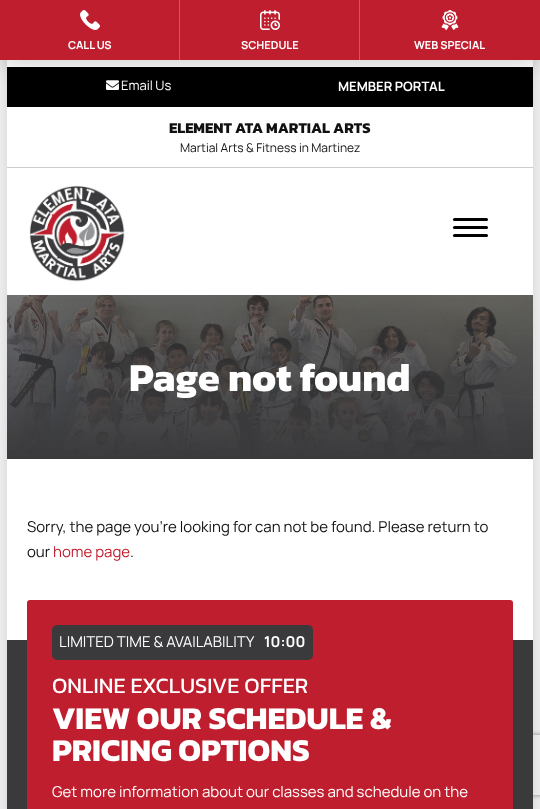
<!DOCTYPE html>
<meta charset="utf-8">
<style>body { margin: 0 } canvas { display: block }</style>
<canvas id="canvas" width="540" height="809"></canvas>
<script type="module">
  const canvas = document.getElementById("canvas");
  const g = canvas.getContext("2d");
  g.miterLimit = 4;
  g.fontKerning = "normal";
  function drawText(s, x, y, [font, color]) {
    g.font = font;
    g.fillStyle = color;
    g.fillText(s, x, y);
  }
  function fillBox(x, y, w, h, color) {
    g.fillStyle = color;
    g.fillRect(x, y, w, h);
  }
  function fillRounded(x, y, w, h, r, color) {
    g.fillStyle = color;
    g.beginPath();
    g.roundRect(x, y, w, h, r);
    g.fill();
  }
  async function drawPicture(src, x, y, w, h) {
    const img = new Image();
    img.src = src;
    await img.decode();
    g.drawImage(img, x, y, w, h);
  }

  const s1 = ["bold 11px Manrope", "#FFFFFF"];
  const s2 = ["13px Manrope", "#FFFFFF"];
  const s3 = ["bold 13px Manrope", "#FFFFFF"];
  const s4 = ["bold 15px Kanit", "#111111"];
  const s5 = ["12px Manrope", "#111111"];
  const s6 = ["bold 40px Kanit", "#FFFFFF"];
  const s7 = ["15px Manrope", "#111111"];
  const s8 = ["15px Manrope", "#BF1E2E"];
  const s9 = ["15px Manrope", "#FFFFFF"];
  const s10 = ["bold 15px Manrope", "#FFFFFF"];
  const s11 = ["22px Kanit", "#FFFFFF"];
  const s12 = ["bold 32px Kanit", "#FFFFFF"];

  fillBox(0, 0, 540, 809, "#FFFFFF");
  g.fillStyle = "rgba(0, 0, 0, 0.24)";
  g.filter = "blur(14px)";
  g.beginPath();
  g.rect(7, 7, 526, 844);
  g.fill();
  g.filter = "none";
  fillBox(7, 60, 526, 580, "#FFFFFF");
  fillBox(7, 67, 526, 40, "#000000");
  await drawPicture("pic4.png", 106, 80, 13, 10);
  g.fillStyle = "rgba(0, 0, 0, 0.24)";
  g.filter = "blur(14px)";
  g.beginPath();
  g.rect(0, 0, 540, 60);
  g.fill();
  g.filter = "none";
  fillBox(0, 0, 540, 60, "#BF1E2E");
  fillBox(179, 0, 1, 60, "#CF5662");
  await drawPicture("pic1.png", 80, 10, 20, 20);
  drawText("CALL US", 68, 49, s1);
  fillBox(359, 0, 1, 60, "#CF5662");
  await drawPicture("pic2.png", 260, 10, 20, 20);
  drawText("SCHEDULE", 241, 49, s1);
  await drawPicture("pic3.png", 441, 10, 18, 20);
  drawText("WEB SPECIAL", 414, 49, s1);
  drawText("Email Us", 121, 90, s2);
  drawText("MEMBER PORTAL", 338, 91, s3);
  fillBox(7, 167, 526, 1, "#CCCCCC");
  drawText("ELEMENT ATA MARTIAL ARTS", 169, 133, s4);
  drawText("Martial Arts & Fitness in Martinez", 180, 152, s5);
  await drawPicture("pic5.png", 29, 185, 96, 97);
  fillRounded(453, 226, 35, 3, 1.5, "#000000");
  fillRounded(453, 218, 35, 3, 1.5, "#000000");
  fillRounded(453, 234, 35, 3, 1.5, "#000000");
  await drawPicture("pic6.png", 7, 295, 526, 164);
  drawText("Page not found", 129, 391, s6);
  drawText("Sorry, the page you're looking for can not be found. Please return to", 27, 532, s7);
  drawText("our", 27, 557, s7);
  drawText("home page", 53, 557, s8);
  drawText(".", 130, 557, s7);
  g.save();
  g.beginPath();
  g.moveTo(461, 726);
  g.lineTo(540, 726);
  g.lineTo(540, 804);
  g.lineTo(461, 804);
  g.closePath();
  g.moveTo(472, 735);
  g.lineTo(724, 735);
  g.bezierCurveTo(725, 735, 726, 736, 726, 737);
  g.lineTo(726, 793);
  g.bezierCurveTo(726, 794, 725, 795, 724, 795);
  g.lineTo(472, 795);
  g.bezierCurveTo(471, 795, 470, 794, 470, 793);
  g.lineTo(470, 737);
  g.bezierCurveTo(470, 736, 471, 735, 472, 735);
  g.closePath();
  g.clip("evenodd");
  g.fillStyle = "#808080";
  g.filter = "blur(2.5px)";
  g.beginPath();
  g.roundRect(470, 735, 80, 60, 2);
  g.fill();
  g.filter = "none";
  g.restore();
  fillBox(7, 640, 526, 169, "#3A3A3C");
  fillRounded(27, 600, 486, 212, 3, "#BF1E2E");
  fillRounded(52, 625, 261, 35, 5, "#3A3A3C");
  drawText("LIMITED TIME & AVAILABILITY", 59, 647, s9);
  drawText("10:00", 264, 647, s10);
  drawText("ONLINE EXCLUSIVE OFFER", 52, 693, s11);
  drawText("VIEW OUR SCHEDULE &", 52, 729, s12);
  drawText("PRICING OPTIONS", 52, 761, s12);
  drawText("Get more information about our classes and schedule on the", 52, 797, s9);
</script>
